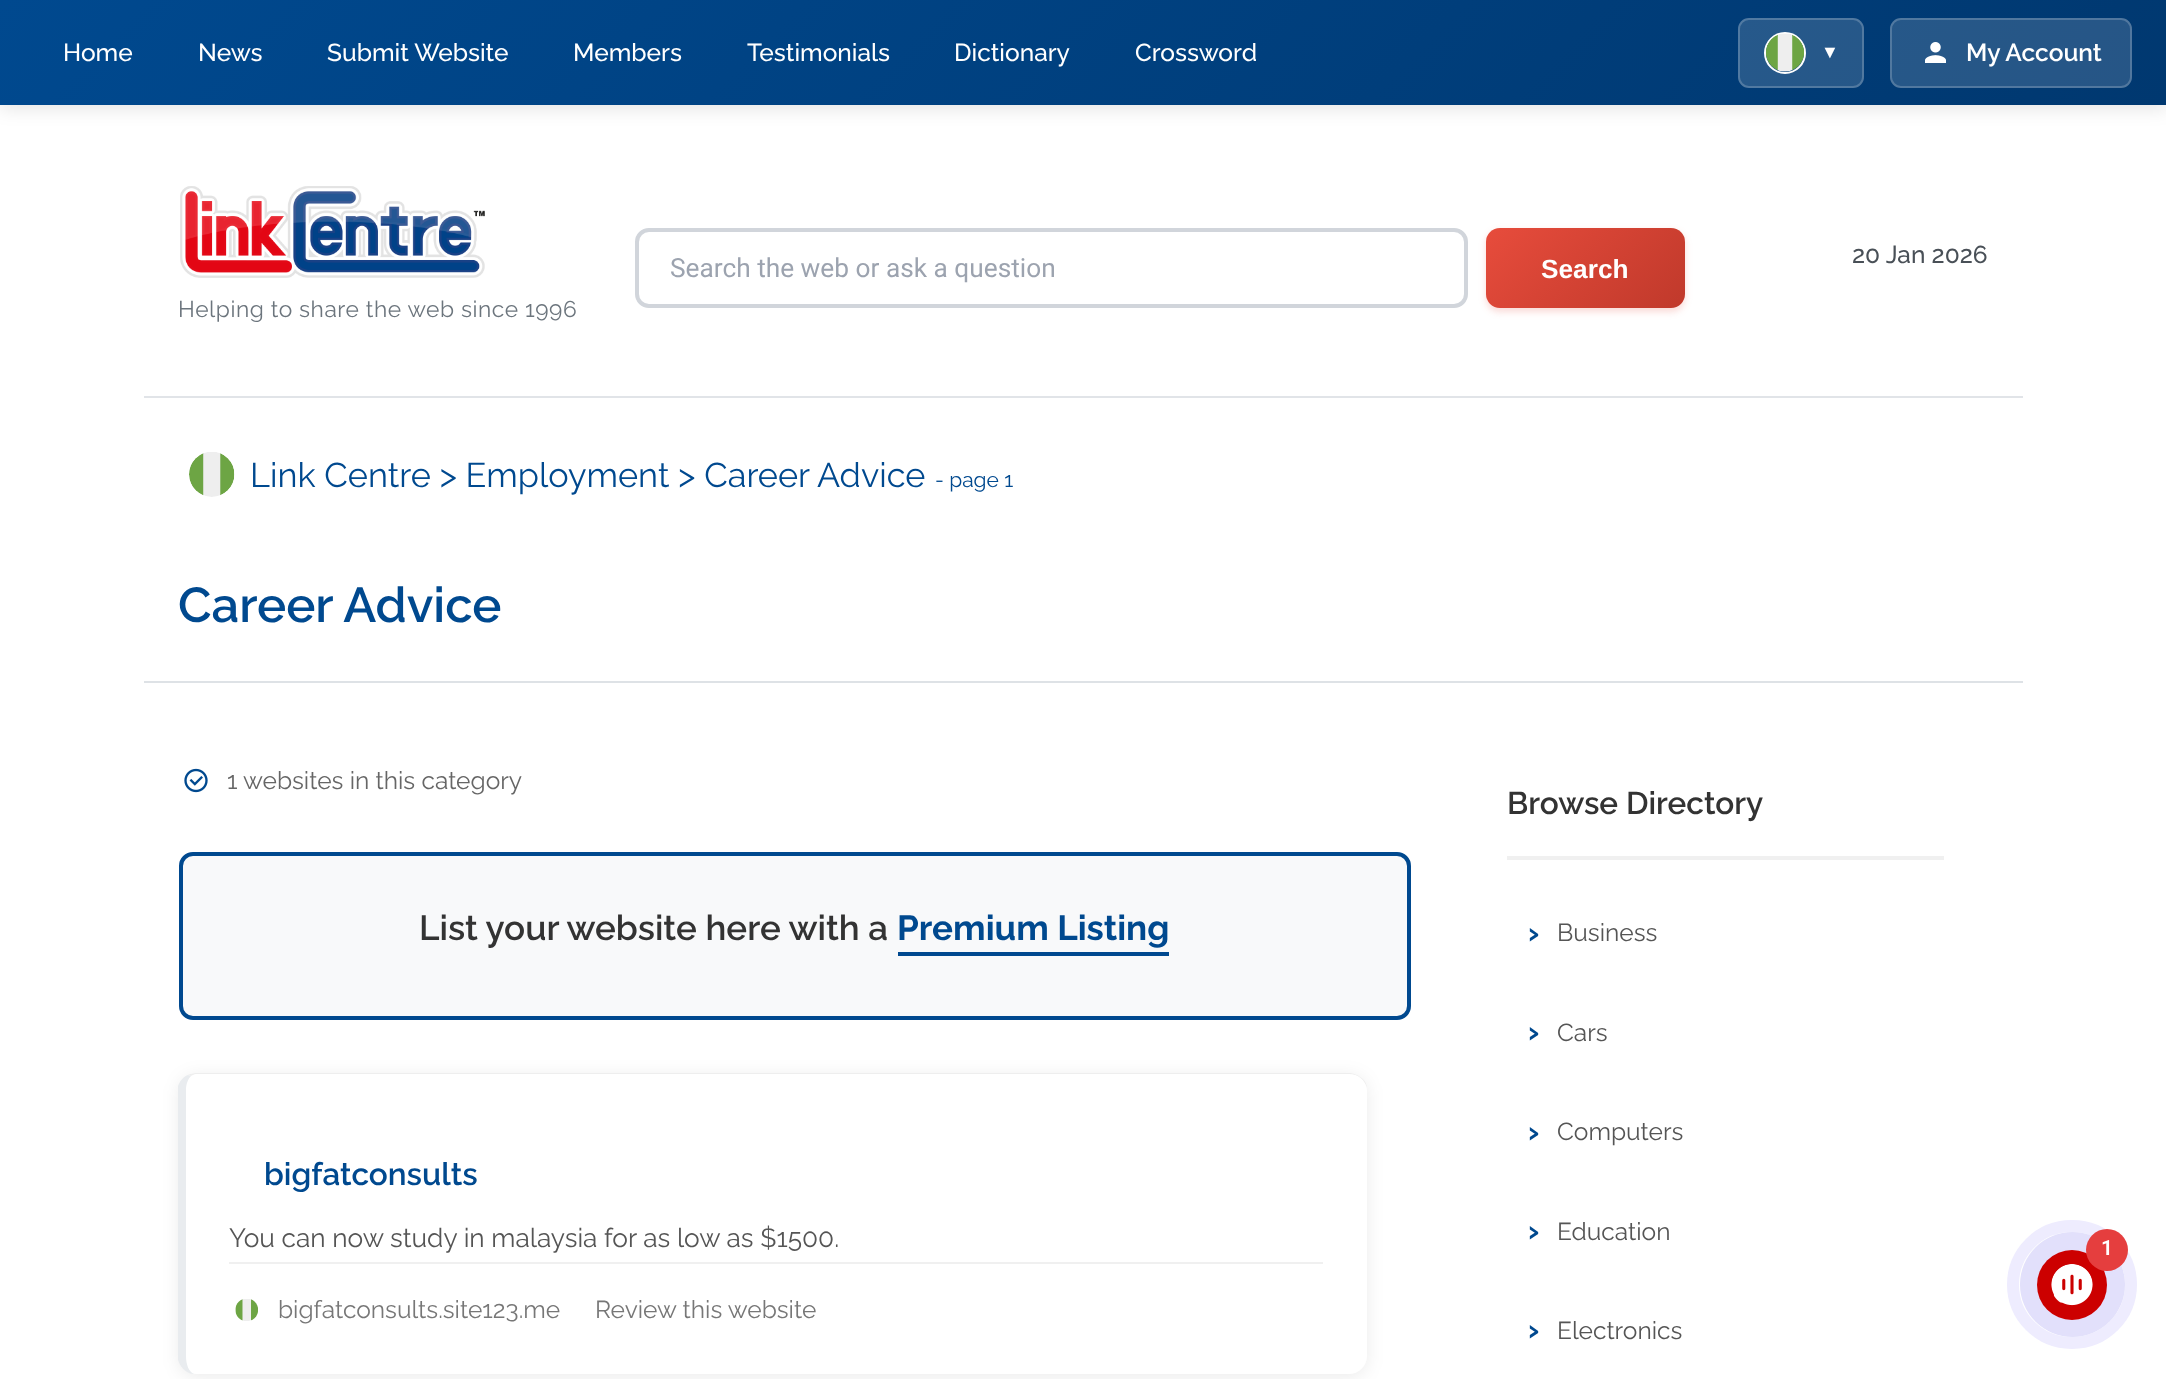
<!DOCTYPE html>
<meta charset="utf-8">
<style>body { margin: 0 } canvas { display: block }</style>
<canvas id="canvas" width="2166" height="1379"></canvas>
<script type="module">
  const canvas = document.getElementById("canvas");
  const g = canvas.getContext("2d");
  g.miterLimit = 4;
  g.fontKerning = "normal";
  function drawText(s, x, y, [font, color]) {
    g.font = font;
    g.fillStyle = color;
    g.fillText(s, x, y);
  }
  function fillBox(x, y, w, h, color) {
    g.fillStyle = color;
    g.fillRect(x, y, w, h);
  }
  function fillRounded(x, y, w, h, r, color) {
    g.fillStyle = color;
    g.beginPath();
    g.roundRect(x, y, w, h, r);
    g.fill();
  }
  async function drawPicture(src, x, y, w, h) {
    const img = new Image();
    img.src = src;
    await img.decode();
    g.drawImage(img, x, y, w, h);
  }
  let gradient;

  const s1 = ["500 24.5px Raleway", "#FFFFFF"];
  const s2 = ["18px Liberation Sans", "#FFFFFF"];
  const s3 = ["600 24.5px Raleway", "#FFFFFF"];
  const s4 = ["500 24.5px Raleway", "#495057"];
  const s5 = ["26.25px Roboto", "#9CA3AF"];
  const s6 = ["bold 26.25px Liberation Sans", "#FFFFFF"];
  const s7 = ["22.75px Raleway", "#6C757D"];
  const s8 = ["34.25px Raleway", "#00498F"];
  const s9 = ["21px Raleway", "#00498F"];
  const s10 = ["600 49px Raleway", "#00498F"];
  const s11 = ["24.5px Raleway", "#666666"];
  const s12 = ["600 35px Raleway", "#333333"];
  const s13 = ["bold 35px Raleway", "#00498F"];
  const s14 = ["600 31.5px Raleway", "#00498F"];
  const s15 = ["26.25px Raleway", "#555555"];
  const s16 = ["24.5px Raleway", "#777777"];
  const s17 = ["600 31.5px Raleway", "#333333"];
  const s18 = ["bold 31.5px Raleway", "#00498F"];
  const s19 = ["24.5px Raleway", "#555555"];
  const s20 = ["600 21px Roboto", "#FFFFFF"];

  fillBox(0, 0, 2166, 1379, "#FFFFFF");
  g.fillStyle = "rgba(0, 0, 0, 0.1)";
  g.filter = "blur(9px)";
  g.beginPath();
  g.rect(0, 4, 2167, 105);
  g.fill();
  g.filter = "none";
  gradient = g.createLinearGradient(515, -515, 1651, 620);
  gradient.addColorStop(0, "#00498F");
  gradient.addColorStop(1, "#003870");
  g.fillStyle = gradient;
  g.fillRect(0, 0, 2166, 105);
  drawText("Home", 63, 61, s1);
  drawText("News", 198, 61, s1);
  drawText("Submit Website", 327, 61, s1);
  drawText("Members", 573, 61, s1);
  drawText("Testimonials", 747, 61, s1);
  drawText("Dictionary", 954, 61, s1);
  drawText("Crossword", 1135, 61, s1);
  fillRounded(1738, 18, 126, 70, 11, "rgba(255, 255, 255, 0.15)");
  g.beginPath();
  g.roundRect(1739, 19, 124, 68, 10);
  g.strokeStyle = "rgba(255, 255, 255, 0.2)";
  g.lineWidth = 2;
  g.stroke();
  g.beginPath();
  g.arc(1785, 53, 20, 0, Math.PI * 2);
  g.strokeStyle = "#FFFFFF";
  g.stroke();
  await drawPicture("pic1.png", 1766, 33, 38, 39);
  drawText("▼", 1821, 58, s2);
  fillRounded(1890, 18, 242, 70, 11, "rgba(255, 255, 255, 0.15)");
  g.beginPath();
  g.roundRect(1891, 19, 240, 68, 10);
  g.strokeStyle = "rgba(255, 255, 255, 0.2)";
  g.stroke();
  await drawPicture("pic2.png", 1925, 42, 21, 21);
  drawText("My Account", 1966, 61, s3);
  fillBox(144, 396, 1879, 2, "#E1E4E8");
  drawText("20 Jan 2026", 1852, 263, s4);
  g.beginPath();
  g.roundRect(637, 230, 829, 76, 12);
  g.strokeStyle = "#D1D5DB";
  g.lineWidth = 4;
  g.stroke();
  drawText("Search the web or ask a question", 670, 277, s5);
  g.fillStyle = "rgba(231, 76, 60, 0.2)";
  g.filter = "blur(3.5px)";
  g.beginPath();
  g.roundRect(1486, 231, 199, 81, 14);
  g.fill();
  g.filter = "none";
  gradient = g.createLinearGradient(1516, 198, 1656, 338);
  gradient.addColorStop(0, "#E74C3C");
  gradient.addColorStop(1, "#C0392B");
  g.fillStyle = gradient;
  g.beginPath();
  g.roundRect(1486, 228, 199, 80, 14);
  g.fill();
  drawText("Search", 1541, 278, s6);
  await drawPicture("pic3.png", 180, 186, 305, 92);
  g.letterSpacing = "0.55px";
  drawText("Helping to share the web since 1996", 178, 317, s7);
  await drawPicture("pic4.png", 189, 452, 46, 45);
  g.letterSpacing = "0px";
  drawText("Link Centre > Employment > Career Advice", 250, 487, s8);
  drawText("- page 1", 935, 487, s9);
  fillBox(144, 681, 1879, 2, "#DEE2E6");
  drawText("Career Advice", 178, 622, s10);
  await drawPicture("pic5.png", 184, 768, 24, 25);
  drawText("1 websites in this category", 227, 789, s11);
  g.fillStyle = "#F8F9FA";
  g.beginPath();
  g.roundRect(181, 854, 1228, 164, 12);
  g.fill();
  g.strokeStyle = "#00498F";
  g.stroke();
  drawText("List your website here with a", 419, 940, s12);
  drawText("Premium Listing", 897, 940, s13);
  fillBox(898, 952, 271, 4, "#00498F");
  g.fillStyle = "rgba(0, 0, 0, 0.08)";
  g.filter = "blur(9px)";
  g.beginPath();
  g.roundRect(179, 1076, 1188, 301, 18);
  g.fill();
  g.filter = "none";
  fillRounded(179, 1073, 1188, 301, 18, "#FFFFFF");
  g.fillStyle = "#EEEEEE";
  g.beginPath();
  g.moveTo(196, 1073);
  g.lineTo(1349, 1073);
  g.bezierCurveTo(1356, 1073, 1367, 1079, 1367, 1088);
  g.bezierCurveTo(1365, 1080, 1358, 1074, 1349, 1074);
  g.lineTo(196, 1074);
  g.bezierCurveTo(194, 1074, 193, 1075, 191, 1076);
  g.lineTo(188, 1075);
  g.bezierCurveTo(190, 1074, 193, 1073, 196, 1073);
  g.closePath();
  g.fill();
  g.fillStyle = "#E9ECEF";
  g.beginPath();
  g.moveTo(194, 1374);
  g.lineTo(193, 1374);
  g.bezierCurveTo(186, 1373, 180, 1367, 178, 1360);
  g.lineTo(178, 1086);
  g.bezierCurveTo(180, 1081, 183, 1077, 188, 1075);
  g.lineTo(191, 1076);
  g.bezierCurveTo(188, 1079, 186, 1084, 186, 1090);
  g.lineTo(186, 1356);
  g.bezierCurveTo(186, 1365, 189, 1372, 194, 1374);
  g.closePath();
  g.fill();
  drawText("bigfatconsults", 264, 1185, s14);
  drawText("You can now study in malaysia for as low as $1500.", 229, 1247, s15);
  fillBox(229, 1262, 1094, 2, "#F0F0F0");
  await drawPicture("pic6.png", 235, 1299, 23, 22);
  drawText("bigfatconsults.site123.me", 278, 1318, s16);
  drawText("Review this website", 595, 1318, s16);
  fillBox(1507, 856, 437, 4, "#F0F0F0");
  drawText("Browse Directory", 1507, 814, s17);
  drawText("›", 1528, 943, s18);
  drawText("Business", 1557, 941, s19);
  drawText("›", 1528, 1042, s18);
  drawText("Cars", 1557, 1041, s19);
  drawText("›", 1528, 1142, s18);
  drawText("Computers", 1557, 1140, s19);
  drawText("›", 1528, 1241, s18);
  drawText("Education", 1557, 1240, s19);
  drawText("›", 1528, 1340, s18);
  drawText("Electronics", 1557, 1339, s19);
  g.beginPath();
  g.roundRect(2013, 1226, 118, 117, 58.5);
  g.strokeStyle = "#EEECFE";
  g.lineWidth = 12;
  g.stroke();
  g.fillStyle = "#E2E0FB";
  g.beginPath();
  g.arc(2072.5, 1284.5, 52.5, 0, Math.PI * 2);
  g.fill();
  g.fillStyle = "#CC0000";
  g.beginPath();
  g.arc(2072, 1285, 35, 0, Math.PI * 2);
  g.fill();
  await drawPicture("pic7.png", 2051, 1264, 42, 42);
  g.fillStyle = "#E53E3E";
  g.beginPath();
  g.arc(2107, 1250, 21, 0, Math.PI * 2);
  g.fill();
  drawText("1", 2101, 1255, s20);
</script>
